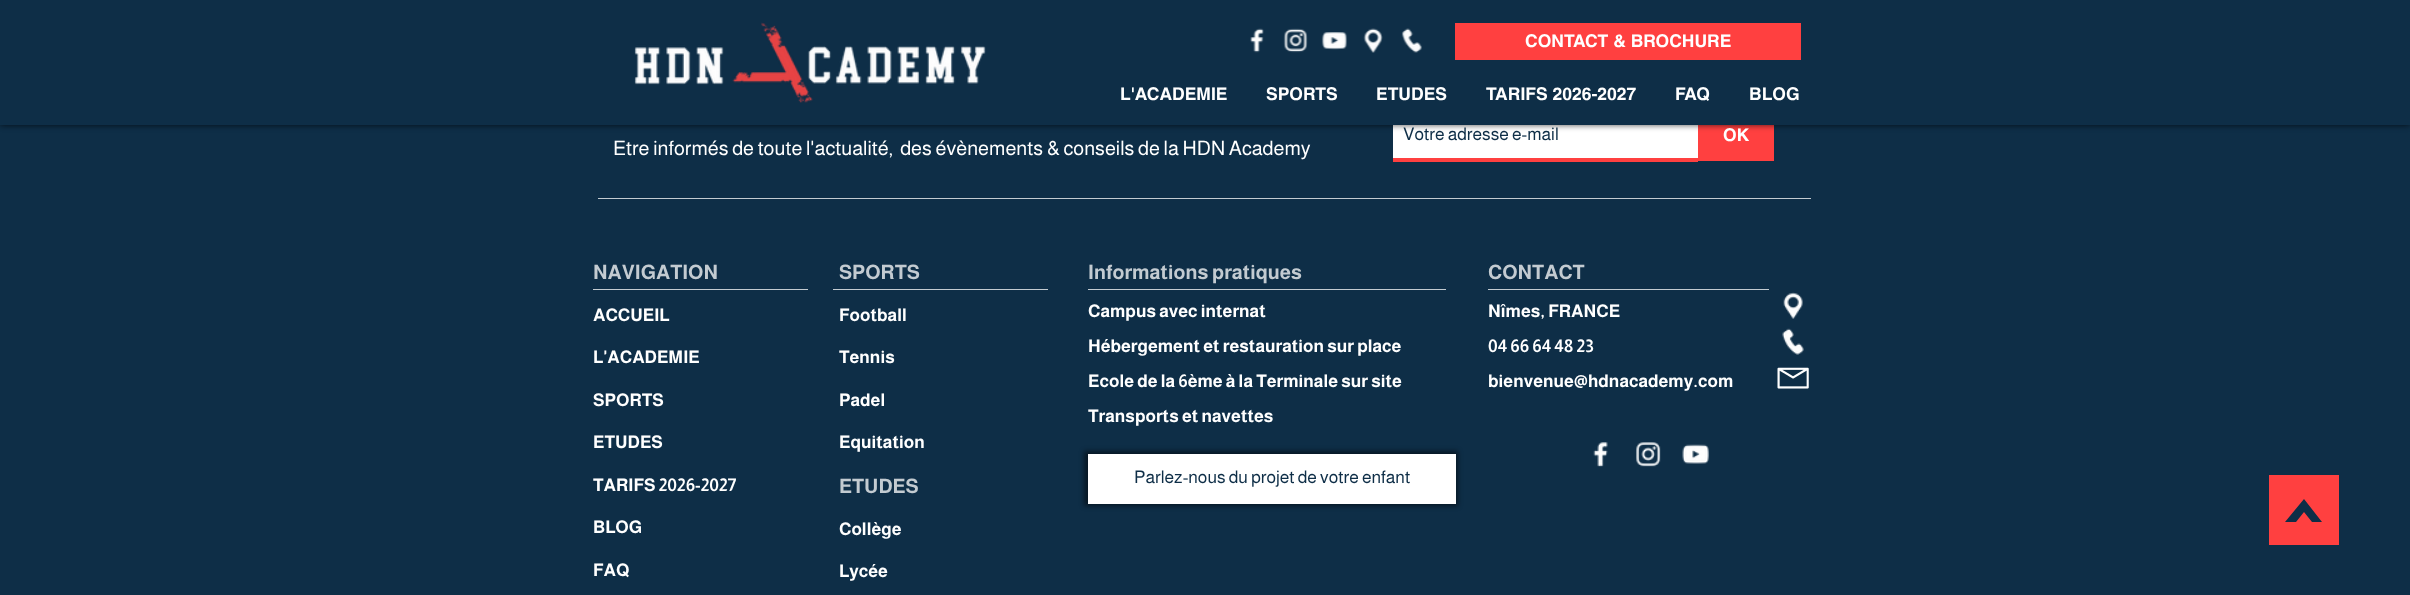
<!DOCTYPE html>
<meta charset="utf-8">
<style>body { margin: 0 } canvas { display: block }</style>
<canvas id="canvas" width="2410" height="595"></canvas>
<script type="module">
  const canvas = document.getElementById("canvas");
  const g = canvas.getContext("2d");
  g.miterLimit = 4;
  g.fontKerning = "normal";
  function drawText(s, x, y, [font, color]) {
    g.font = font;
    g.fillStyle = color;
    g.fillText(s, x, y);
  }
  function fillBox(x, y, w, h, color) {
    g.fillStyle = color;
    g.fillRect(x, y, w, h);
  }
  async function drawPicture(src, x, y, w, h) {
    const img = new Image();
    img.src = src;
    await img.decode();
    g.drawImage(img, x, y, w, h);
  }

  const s1 = ["bold 17.5px helvetica", "#FFFFFF"];
  const s2 = ["17.5px Almarai", "#0E2E47"];
  const s3 = ["20px Almarai", "#FFFFFF"];
  const s4 = ["bold 20px Almarai", "#C3CBD1"];
  const s5 = ["bold 17.5px Almarai", "#FFFFFF"];

  fillBox(0, 0, 2410, 595, "#0E2E47");
  fillBox(1393, 125, 305, 33, "#FFFFFF");
  fillBox(1698, 125, 76, 36, "#FF4040");
  g.fillStyle = "rgba(0, 0, 0, 0.7)";
  g.filter = "blur(3px)";
  g.beginPath();
  g.rect(0, 0, 2410, 125);
  g.fill();
  g.filter = "none";
  fillBox(0, 0, 2410, 125, "#0E2E47");
  await drawPicture("pic1.png", 634, 22, 352, 81);
  await drawPicture("pic2.png", 1250, 28, 14, 25);
  await drawPicture("pic3.png", 1283, 28, 25, 25);
  await drawPicture("pic4.png", 1321, 32, 26, 18);
  await drawPicture("pic5.png", 1363, 28, 20, 25);
  await drawPicture("pic6.png", 1401, 28, 21, 25);
  fillBox(1455, 23, 346, 37, "#FF4040");
  drawText("CONTACT & BROCHURE", 1525, 47, s1);
  drawText("L'ACADEMIE", 1120, 100, s1);
  drawText("SPORTS", 1266, 100, s1);
  drawText("ETUDES", 1376, 100, s1);
  drawText("TARIFS 2026-2027", 1486, 100, s1);
  drawText("FAQ", 1675, 100, s1);
  drawText("BLOG", 1749, 100, s1);
  fillBox(1393, 158, 305, 4, "#FF4040");
  drawText("Votre adresse e-mail", 1403, 140, s2);
  drawText("OK", 1723, 141, s1);
  drawText("Etre informés de toute l'actualité,  des évènements & conseils de la HDN Academy", 613, 155, s3);
  fillBox(598, 198, 1213, 1, "#C3CBD1");
  drawText("NAVIGATION", 593, 279, s4);
  drawText("ACCUEIL", 593, 321, s5);
  drawText("L'ACADEMIE", 593, 363, s5);
  drawText("SPORTS", 593, 406, s5);
  drawText("ETUDES", 593, 448, s5);
  drawText("TARIFS 2026-2027", 593, 491, s5);
  drawText("BLOG", 593, 533, s5);
  drawText("FAQ", 593, 576, s5);
  drawText("SPORTS", 839, 279, s4);
  drawText("Football", 839, 321, s5);
  drawText("Tennis", 839, 363, s5);
  drawText("Padel", 839, 406, s5);
  drawText("Equitation", 839, 448, s5);
  drawText("ETUDES", 839, 493, s4);
  drawText("Collège", 839, 535, s5);
  drawText("Lycée", 839, 577, s5);
  drawText("Informations pratiques", 1088, 279, s4);
  drawText("Campus avec internat", 1088, 317, s5);
  drawText("Hébergement et restauration sur place", 1088, 352, s5);
  drawText("Ecole de la 6ème à la Terminale sur site", 1088, 387, s5);
  drawText("Transports et navettes", 1088, 422, s5);
  drawText("CONTACT", 1488, 279, s4);
  drawText("Nîmes, FRANCE", 1488, 317, s5);
  drawText("04 66 64 48 23", 1488, 352, s5);
  drawText("bienvenue@hdnacademy.com", 1488, 387, s5);
  await drawPicture("pic7.png", 1783, 292, 20, 27);
  await drawPicture("pic8.png", 1782, 328, 22, 27);
  await drawPicture("pic9.png", 1777, 367, 32, 22);
  await drawPicture("pic10.png", 1593, 442, 15, 25);
  await drawPicture("pic11.png", 1636, 442, 25, 25);
  await drawPicture("pic12.png", 1682, 444, 27, 20);
  fillBox(593, 289, 215, 1, "#C3CBD1");
  fillBox(833, 289, 215, 1, "#C3CBD1");
  fillBox(1088, 289, 358, 1, "#C3CBD1");
  fillBox(1488, 289, 281, 1, "#C3CBD1");
  g.fillStyle = "rgba(0, 0, 0, 0.5)";
  g.filter = "blur(2.5px)";
  g.beginPath();
  g.rect(1084, 451, 374, 55);
  g.fill();
  g.filter = "none";
  fillBox(1088, 454, 368, 50, "#FFFFFF");
  drawText("Parlez-nous du projet de votre enfant", 1134, 483, s2);
  g.fillStyle = "#FF4040";
  g.beginPath();
  g.moveTo(2269, 475);
  g.lineTo(2269, 545);
  g.lineTo(2339, 545);
  g.lineTo(2339, 475);
  g.closePath();
  g.moveTo(2312, 522);
  g.lineTo(2304, 512);
  g.lineTo(2296, 522);
  g.lineTo(2285, 522);
  g.lineTo(2304, 499);
  g.lineTo(2322, 522);
  g.closePath();
  g.fill();
</script>
